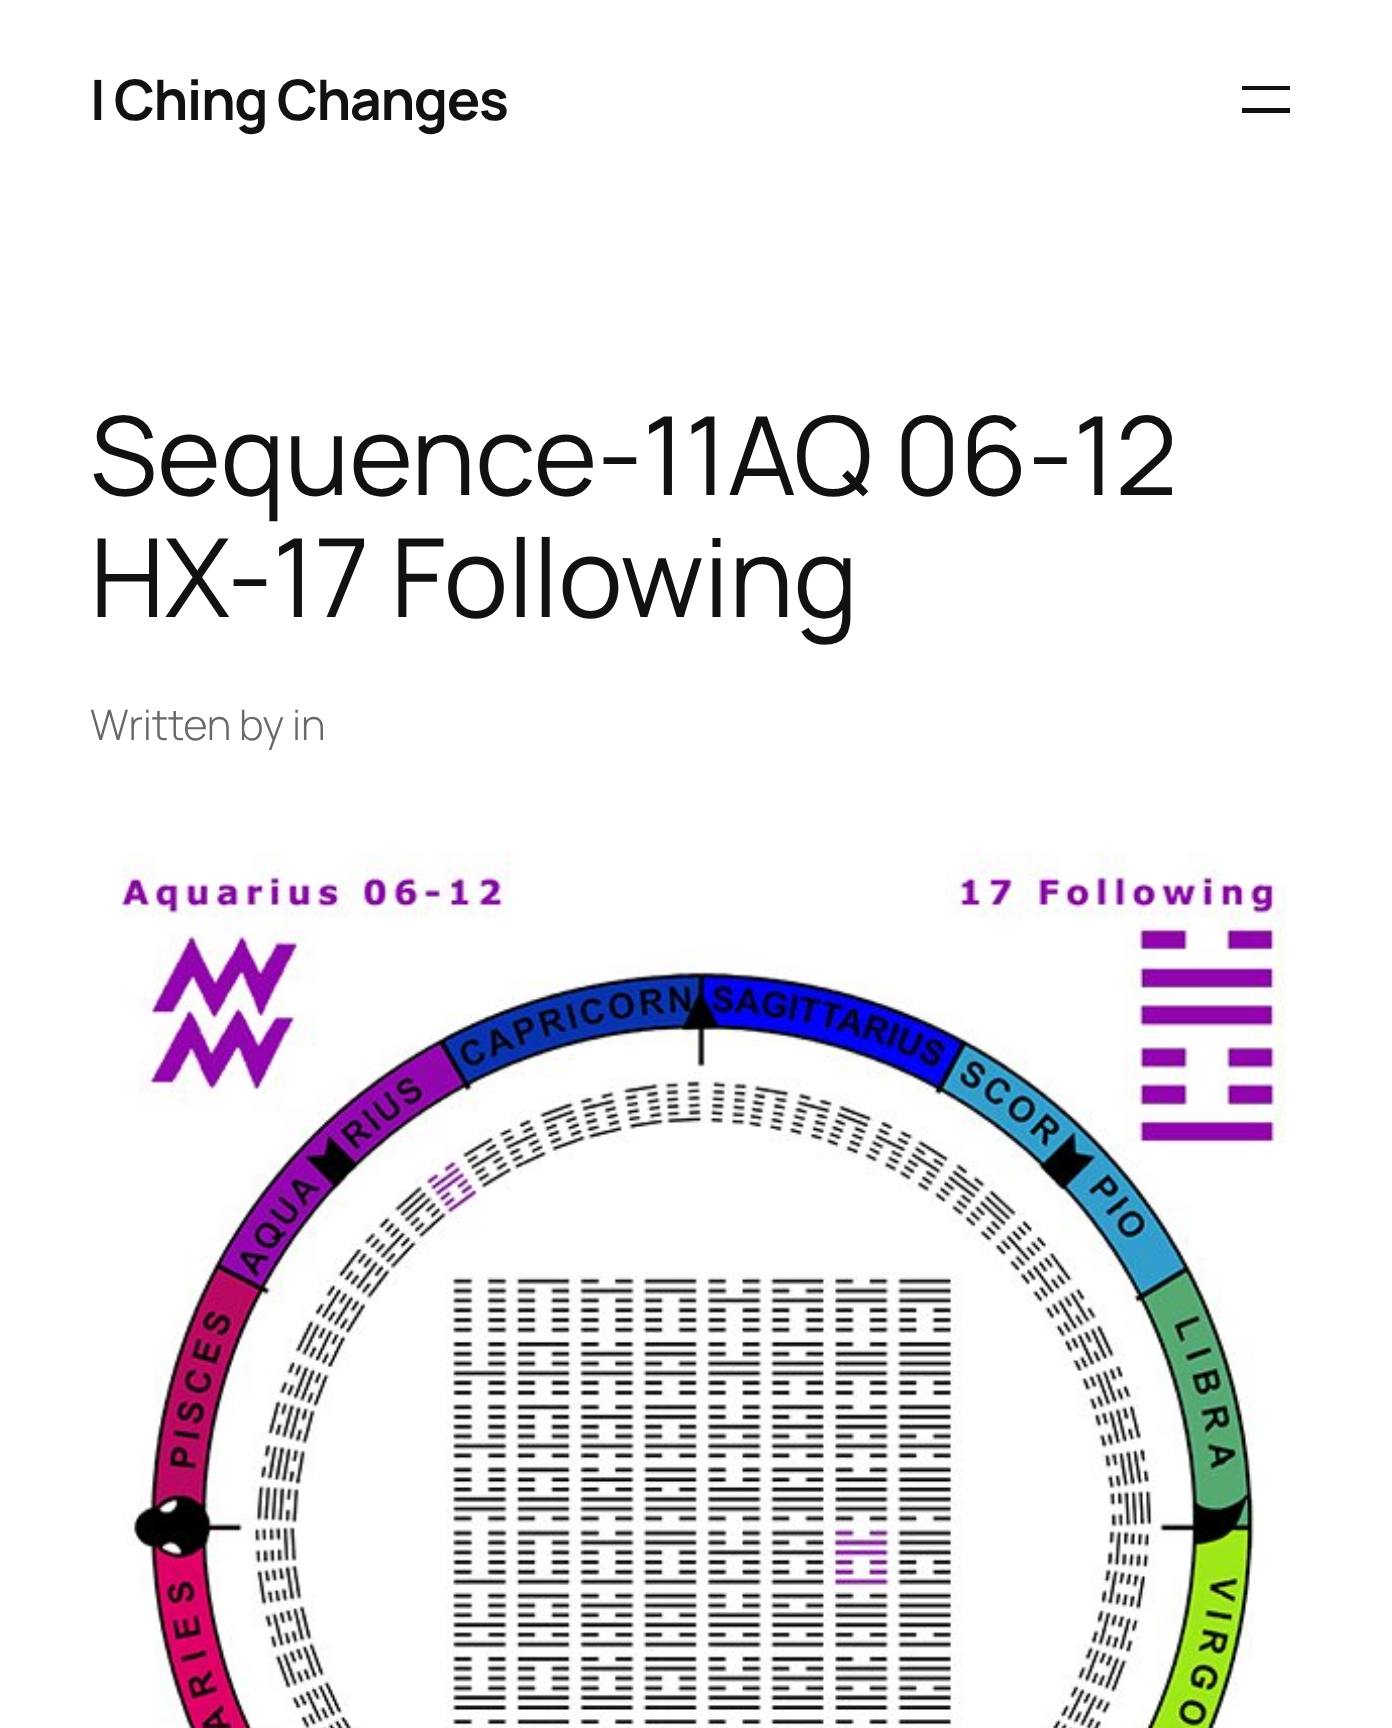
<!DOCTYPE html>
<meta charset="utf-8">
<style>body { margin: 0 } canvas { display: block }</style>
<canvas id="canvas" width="1392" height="1728"></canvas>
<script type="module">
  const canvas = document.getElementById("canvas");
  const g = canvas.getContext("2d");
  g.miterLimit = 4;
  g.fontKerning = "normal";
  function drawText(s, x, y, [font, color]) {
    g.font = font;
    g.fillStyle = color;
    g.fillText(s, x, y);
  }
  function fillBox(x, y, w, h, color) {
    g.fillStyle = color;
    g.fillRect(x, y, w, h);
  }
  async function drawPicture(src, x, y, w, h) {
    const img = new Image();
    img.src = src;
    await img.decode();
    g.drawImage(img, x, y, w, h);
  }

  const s1 = ["bold 55.75px Manrope", "#111111"];
  const s2 = ["109px Manrope", "#111111"];
  const s3 = ["300 42px Manrope", "#686868"];

  fillBox(0, 0, 1392, 1728, "#FFFFFF");
  g.letterSpacing = "-1.5px";
  drawText("I Ching Changes", 90, 120, s1);
  fillBox(1242, 86, 48, 4, "#111111");
  fillBox(1242, 108, 48, 5, "#111111");
  g.letterSpacing = "-0.25px";
  drawText("Sequence-11AQ 06-12", 90, 495, s2);
  drawText("HX-17 Following", 90, 617, s2);
  drawText("Written by", 90, 740, s3);
  drawText("in", 292, 740, s3);
  await drawPicture("pic1.png", 120, 852, 1167, 876);
</script>
